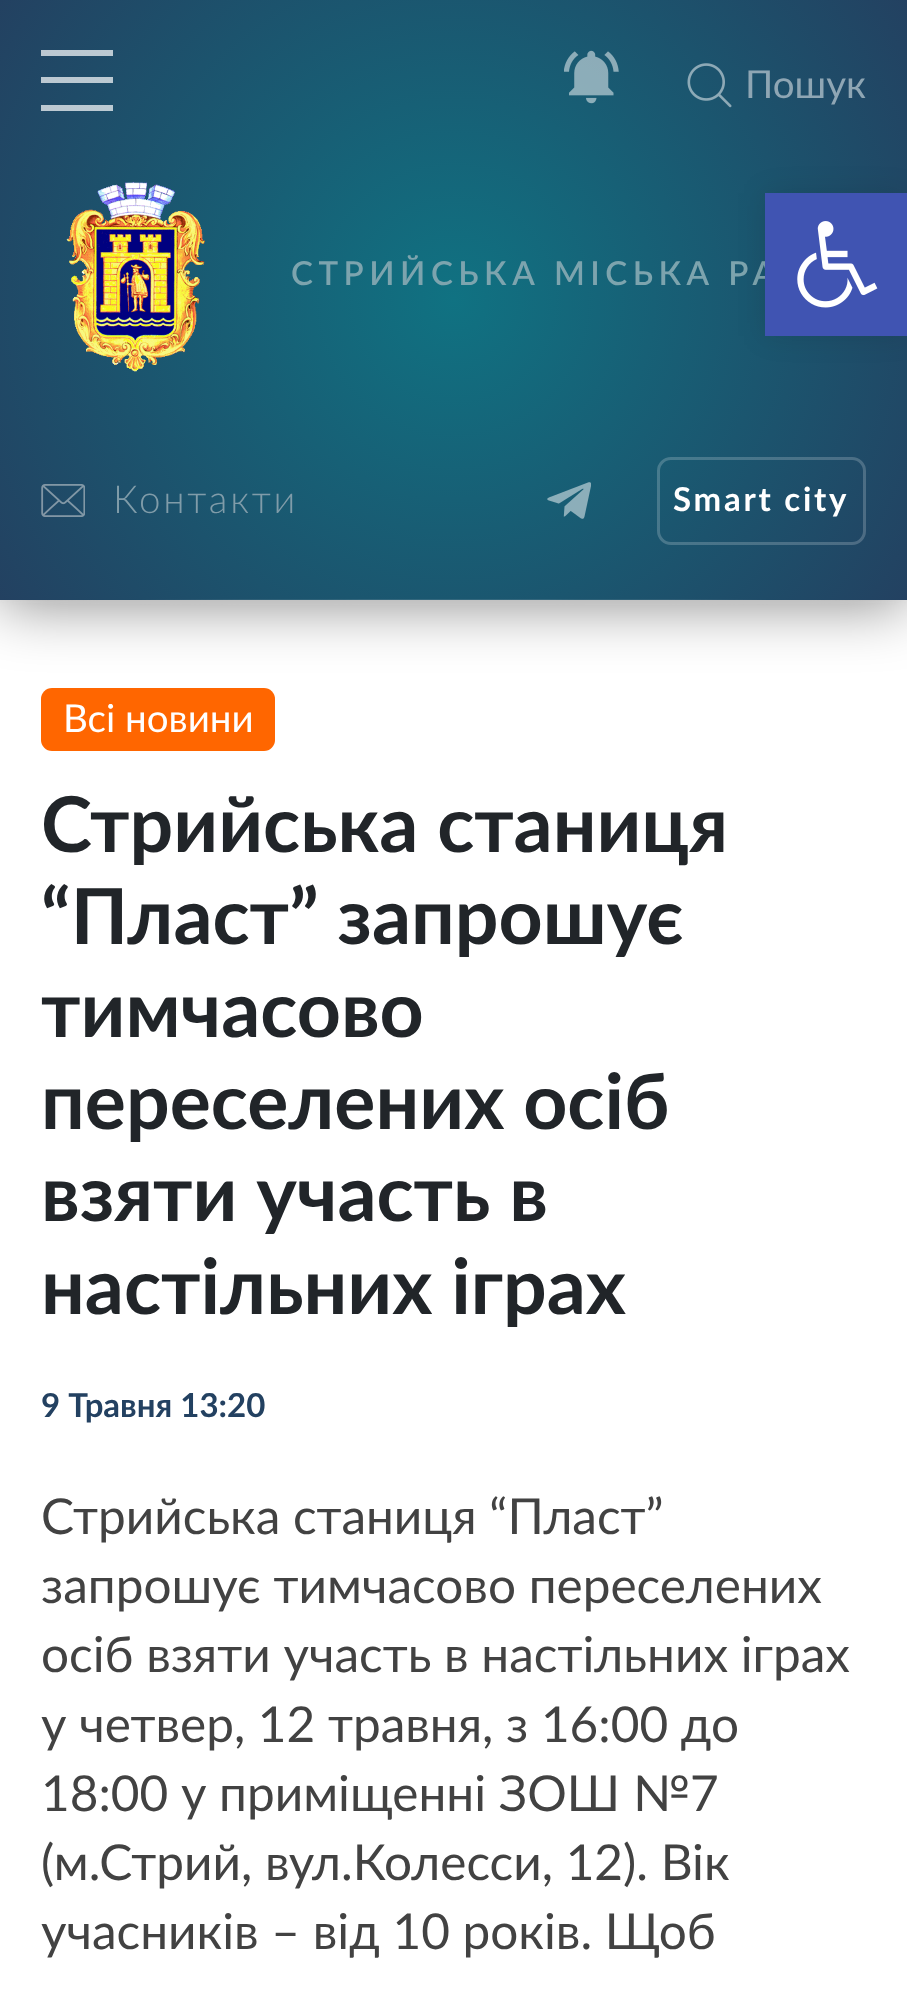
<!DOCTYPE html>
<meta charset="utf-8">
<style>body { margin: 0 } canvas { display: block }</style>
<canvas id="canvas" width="907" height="1995"></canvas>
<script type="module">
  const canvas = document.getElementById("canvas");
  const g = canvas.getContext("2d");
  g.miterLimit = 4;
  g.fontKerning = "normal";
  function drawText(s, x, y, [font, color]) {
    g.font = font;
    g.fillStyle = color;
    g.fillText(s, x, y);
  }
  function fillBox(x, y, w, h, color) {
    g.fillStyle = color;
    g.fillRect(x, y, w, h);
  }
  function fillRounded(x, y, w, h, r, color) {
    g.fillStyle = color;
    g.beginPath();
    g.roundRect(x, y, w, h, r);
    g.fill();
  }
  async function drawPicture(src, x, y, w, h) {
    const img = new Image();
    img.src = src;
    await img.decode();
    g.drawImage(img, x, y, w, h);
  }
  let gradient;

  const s1 = ["38.5px Lato", "#8FA6B4"];
  const s2 = ["600 33px Lato", "#7DA4AE"];
  const s3 = ["300 38.5px Lato", "#809CA9"];
  const s4 = ["bold 33px Lato", "#FFFFFF"];
  const s5 = ["38.5px Lato", "#FFFFFF"];
  const s6 = ["bold 77px Lato", "#212529"];
  const s7 = ["bold 33px Lato", "#234161"];
  const s8 = ["49.5px Lato", "#424242"];

  fillBox(0, 0, 907, 1995, "#FFFFFF");
  g.fillStyle = "rgba(0, 0, 0, 0.45)";
  g.filter = "blur(30px)";
  g.beginPath();
  g.rect(0, 6, 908, 599);
  g.fill();
  g.filter = "none";
  gradient = g.createRadialGradient(454, 300, 0, 454, 300, 544);
  gradient.addColorStop(0, "#107282");
  gradient.addColorStop(1, "#234161");
  g.fillStyle = gradient;
  g.fillRect(0, 0, 907, 600);
  gradient = g.createRadialGradient(454, 300, 0, 454, 300, 544);
  gradient.addColorStop(0, "#B7D5DA");
  gradient.addColorStop(1, "#BDC6D0");
  g.fillStyle = gradient;
  g.fillRect(41, 105, 72, 6);
  g.fillRect(41, 77, 72, 6);
  g.fillRect(41, 50, 72, 6);
  await drawPicture("pic1.png", 564, 50, 55, 54);
  await drawPicture("pic2.png", 687, 63, 45, 45);
  drawText("Пошук", 745, 98, s1);
  await drawPicture("pic3.png", 66, 182, 139, 190);
  g.letterSpacing = "5.5px";
  drawText("СТРИЙСЬКА МІСЬКА РА", 291, 285, s2);
  await drawPicture("pic4.png", 41, 484, 44, 33);
  g.letterSpacing = "2.75px";
  drawText("Контакти", 113, 513, s3);
  await drawPicture("pic5.png", 547, 482, 44, 37);
  g.beginPath();
  g.roundRect(658.5, 458.5, 206, 85, 12.5);
  g.strokeStyle = "rgba(255, 255, 255, 0.2)";
  g.lineWidth = 3;
  g.stroke();
  drawText("Smart city", 673, 511, s4);
  g.fillStyle = "rgba(216, 216, 216, 0.13)";
  g.beginPath();
  g.ellipse(454, 602, 454, 3, 0, 0, Math.PI * 2);
  g.fill();
  fillRounded(41, 688, 234, 63, 11, "#FF6600");
  g.letterSpacing = "0px";
  drawText("Всі новини", 63, 732, s5);
  drawText("Стрийська станиця", 41, 852, s6);
  drawText("“Пласт” запрошує", 41, 944, s6);
  drawText("тимчасово", 41, 1037, s6);
  drawText("переселених осіб", 41, 1129, s6);
  drawText("взяти участь в", 41, 1221, s6);
  drawText("настільних іграх", 41, 1314, s6);
  drawText("9 Травня 13:20", 41, 1417, s7);
  drawText("Стрийська станиця “Пласт”", 41, 1534, s8);
  drawText("запрошує тимчасово переселених", 41, 1603, s8);
  drawText("осіб взяти участь в настільних іграх", 41, 1672, s8);
  drawText("у четвер, 12 травня, з 16:00 до", 41, 1742, s8);
  drawText("18:00 у приміщенні ЗОШ №7", 41, 1811, s8);
  drawText("(м.Стрий, вул.Колесси, 12). Вік", 41, 1880, s8);
  drawText("учасників – від 10 років. Щоб", 41, 1949, s8);
  g.fillStyle = "rgba(0, 0, 0, 0.1)";
  g.filter = "blur(14px)";
  g.beginPath();
  g.rect(765, 193, 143, 143);
  g.fill();
  g.filter = "none";
  fillBox(765, 193, 142, 143, "#4054B2");
  await drawPicture("pic6.png", 797, 221, 81, 87);
</script>
